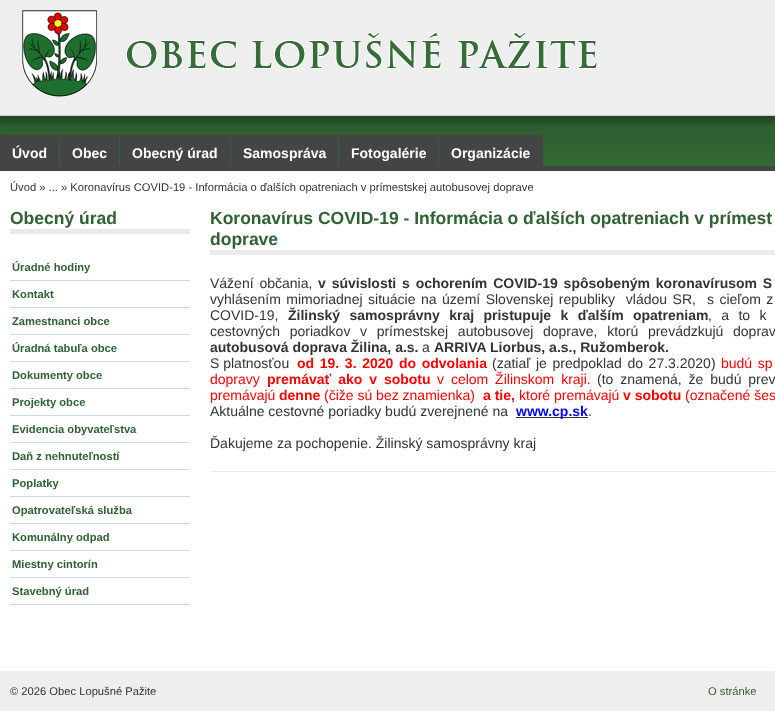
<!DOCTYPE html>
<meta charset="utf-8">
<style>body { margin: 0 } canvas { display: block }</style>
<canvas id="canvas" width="775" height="711"></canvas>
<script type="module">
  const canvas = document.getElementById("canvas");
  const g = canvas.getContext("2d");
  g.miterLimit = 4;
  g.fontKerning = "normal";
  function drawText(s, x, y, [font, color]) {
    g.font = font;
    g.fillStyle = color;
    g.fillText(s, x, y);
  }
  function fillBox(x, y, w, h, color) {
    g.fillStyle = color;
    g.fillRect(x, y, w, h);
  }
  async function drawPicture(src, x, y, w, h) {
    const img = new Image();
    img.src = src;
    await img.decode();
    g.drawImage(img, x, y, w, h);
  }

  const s1 = ["bold 14px Liberation Sans", "#FFFFFF"];
  const s2 = ["11.2px Liberation Sans", "#333333"];
  const s3 = ["bold 17.5px Liberation Sans", "#306133"];
  const s4 = ["bold 11.2px Liberation Sans", "#306133"];
  const s5 = ["14px Liberation Sans", "#333333"];
  const s6 = ["bold 14px Liberation Sans", "#333333"];
  const s7 = ["bold 14px Liberation Sans", "#FF0000"];
  const s8 = ["14px Liberation Sans", "#FF0000"];
  const s9 = ["bold 14px Liberation Sans", "#0000FF"];
  const s10 = ["11.2px Liberation Sans", "#306133"];

  fillBox(0, 0, 775, 711, "#EEEEEE");
  await drawPicture("pic1.png", 0, 115, 775, 51);
  await drawPicture("pic2.png", 22, 10, 576, 87);
  fillBox(0, 166, 775, 5, "#444444");
  g.beginPath();
  g.roundRect(0, 135, 59, 31, [3, 0, 0, 0]);
  g.fill();
  drawText("Úvod", 12, 158, s1);
  fillBox(60, 135, 59, 31, "#444444");
  drawText("Obec", 72, 158, s1);
  fillBox(120, 135, 110, 31, "#444444");
  drawText("Obecný úrad", 132, 158, s1);
  fillBox(231, 135, 107, 31, "#444444");
  drawText("Samospráva", 243, 158, s1);
  fillBox(339, 135, 99, 31, "#444444");
  drawText("Fotogalérie", 351, 158, s1);
  g.fillStyle = "#444444";
  g.beginPath();
  g.roundRect(439, 135, 104, 31, [0, 3, 0, 0]);
  g.fill();
  drawText("Organizácie", 451, 158, s1);
  fillBox(0, 171, 775, 500, "#FFFFFF");
  drawText("Úvod » ... » Koronavírus COVID-19 - Informácia o ďalších opatreniach v prímestskej autobusovej doprave", 10, 191, s2);
  fillBox(10, 229, 180, 5, "#EAEAEA");
  drawText("Obecný úrad", 10, 224, s3);
  fillBox(10, 280, 180, 1, "#D0D8E4");
  drawText("Úradné hodiny", 12, 271, s4);
  fillBox(10, 307, 180, 1, "#D0D8E4");
  drawText("Kontakt", 12, 298, s4);
  fillBox(10, 334, 180, 1, "#D0D8E4");
  drawText("Zamestnanci obce", 12, 325, s4);
  fillBox(10, 361, 180, 1, "#D0D8E4");
  drawText("Úradná tabuľa obce", 12, 352, s4);
  fillBox(10, 388, 180, 1, "#D0D8E4");
  drawText("Dokumenty obce", 12, 379, s4);
  fillBox(10, 415, 180, 1, "#D0D8E4");
  drawText("Projekty obce", 12, 406, s4);
  fillBox(10, 442, 180, 1, "#D0D8E4");
  drawText("Evidencia obyvateľstva", 12, 433, s4);
  fillBox(10, 469, 180, 1, "#D0D8E4");
  drawText("Daň z nehnuteľností", 12, 460, s4);
  fillBox(10, 496, 180, 1, "#D0D8E4");
  drawText("Poplatky", 12, 487, s4);
  fillBox(10, 523, 180, 1, "#D0D8E4");
  drawText("Opatrovateľská služba", 12, 514, s4);
  fillBox(10, 550, 180, 1, "#D0D8E4");
  drawText("Komunálny odpad", 12, 541, s4);
  fillBox(10, 577, 180, 1, "#D0D8E4");
  drawText("Miestny cintorín", 12, 568, s4);
  fillBox(10, 604, 180, 1, "#D0D8E4");
  drawText("Stavebný úrad", 12, 595, s4);
  fillBox(210, 250, 565, 5, "#EAEAEA");
  drawText("Koronavírus COVID-19 - Informácia o ďalších opatreniach v prímest", 210, 224, s3);
  drawText("doprave", 210, 245, s3);
  g.wordSpacing = "2px";
  drawText("Vážení občania,", 210, 288, s5);
  drawText("v súvislosti", 318, 288, s6);
  drawText("s ochorením COVID-19 spôsobeným koronavírusom S", 402, 288, s6);
  g.wordSpacing = "1.6px";
  drawText("vyhlásením mimoriadnej situácie na území Slovenskej republiky  vládou SR,  s cieľom z", 210, 304, s5);
  g.wordSpacing = "0px";
  drawText("COVID-19,", 210, 320, s5);
  g.wordSpacing = "5.5px";
  drawText("Žilinský samosprávny kraj pristupuje k ďalším opatreniam", 288, 320, s6);
  drawText(", a to k", 708, 320, s5);
  g.wordSpacing = "5.75px";
  drawText("cestovných poriadkov v prímestskej autobusovej doprave, ktorú prevádzkujú doprav", 210, 336, s5);
  g.wordSpacing = "0px";
  drawText("autobusová doprava Žilina, a.s.", 210, 352, s6);
  drawText("a", 422, 352, s5);
  drawText("ARRIVA Liorbus, a.s., Ružomberok.", 434, 352, s6);
  drawText("S platnosťou", 210, 368, s5);
  g.wordSpacing = "1.75px";
  drawText("od 19. 3. 2020 do odvolania", 297, 368, s7);
  drawText("(zatiaľ je predpoklad do 27.3.2020)", 492, 368, s5);
  drawText("budú sp", 721, 368, s8);
  g.wordSpacing = "0px";
  drawText("dopravy", 210, 384, s8);
  g.wordSpacing = "3px";
  drawText("premávať ako v sobotu", 267, 384, s7);
  drawText("v celom Žilinskom kraji.", 437, 384, s8);
  drawText("(to znamená, že budú prev", 597, 384, s5);
  g.wordSpacing = "0px";
  drawText("premávajú", 210, 400, s8);
  drawText("denne", 279, 400, s7);
  drawText("(čiže sú bez znamienka)", 324, 400, s8);
  drawText("a tie,", 483, 400, s7);
  drawText("ktoré premávajú", 519, 400, s8);
  drawText("v sobotu", 623, 400, s7);
  drawText("(označené šes", 685, 400, s8);
  drawText("Aktuálne cestovné poriadky budú zverejnené na", 210, 416, s5);
  fillBox(516, 417, 72, 1, "#333333");
  drawText("www.cp.sk", 516, 416, s9);
  drawText(".", 588, 416, s5);
  drawText("Ďakujeme za pochopenie. Žilinský samosprávny kraj", 210, 448, s5);
  fillBox(210, 471, 565, 1, "#EAEAEA");
  drawText("© 2026 Obec Lopušné Pažite", 10, 695, s2);
  drawText("O stránke", 708, 695, s10);
</script>
